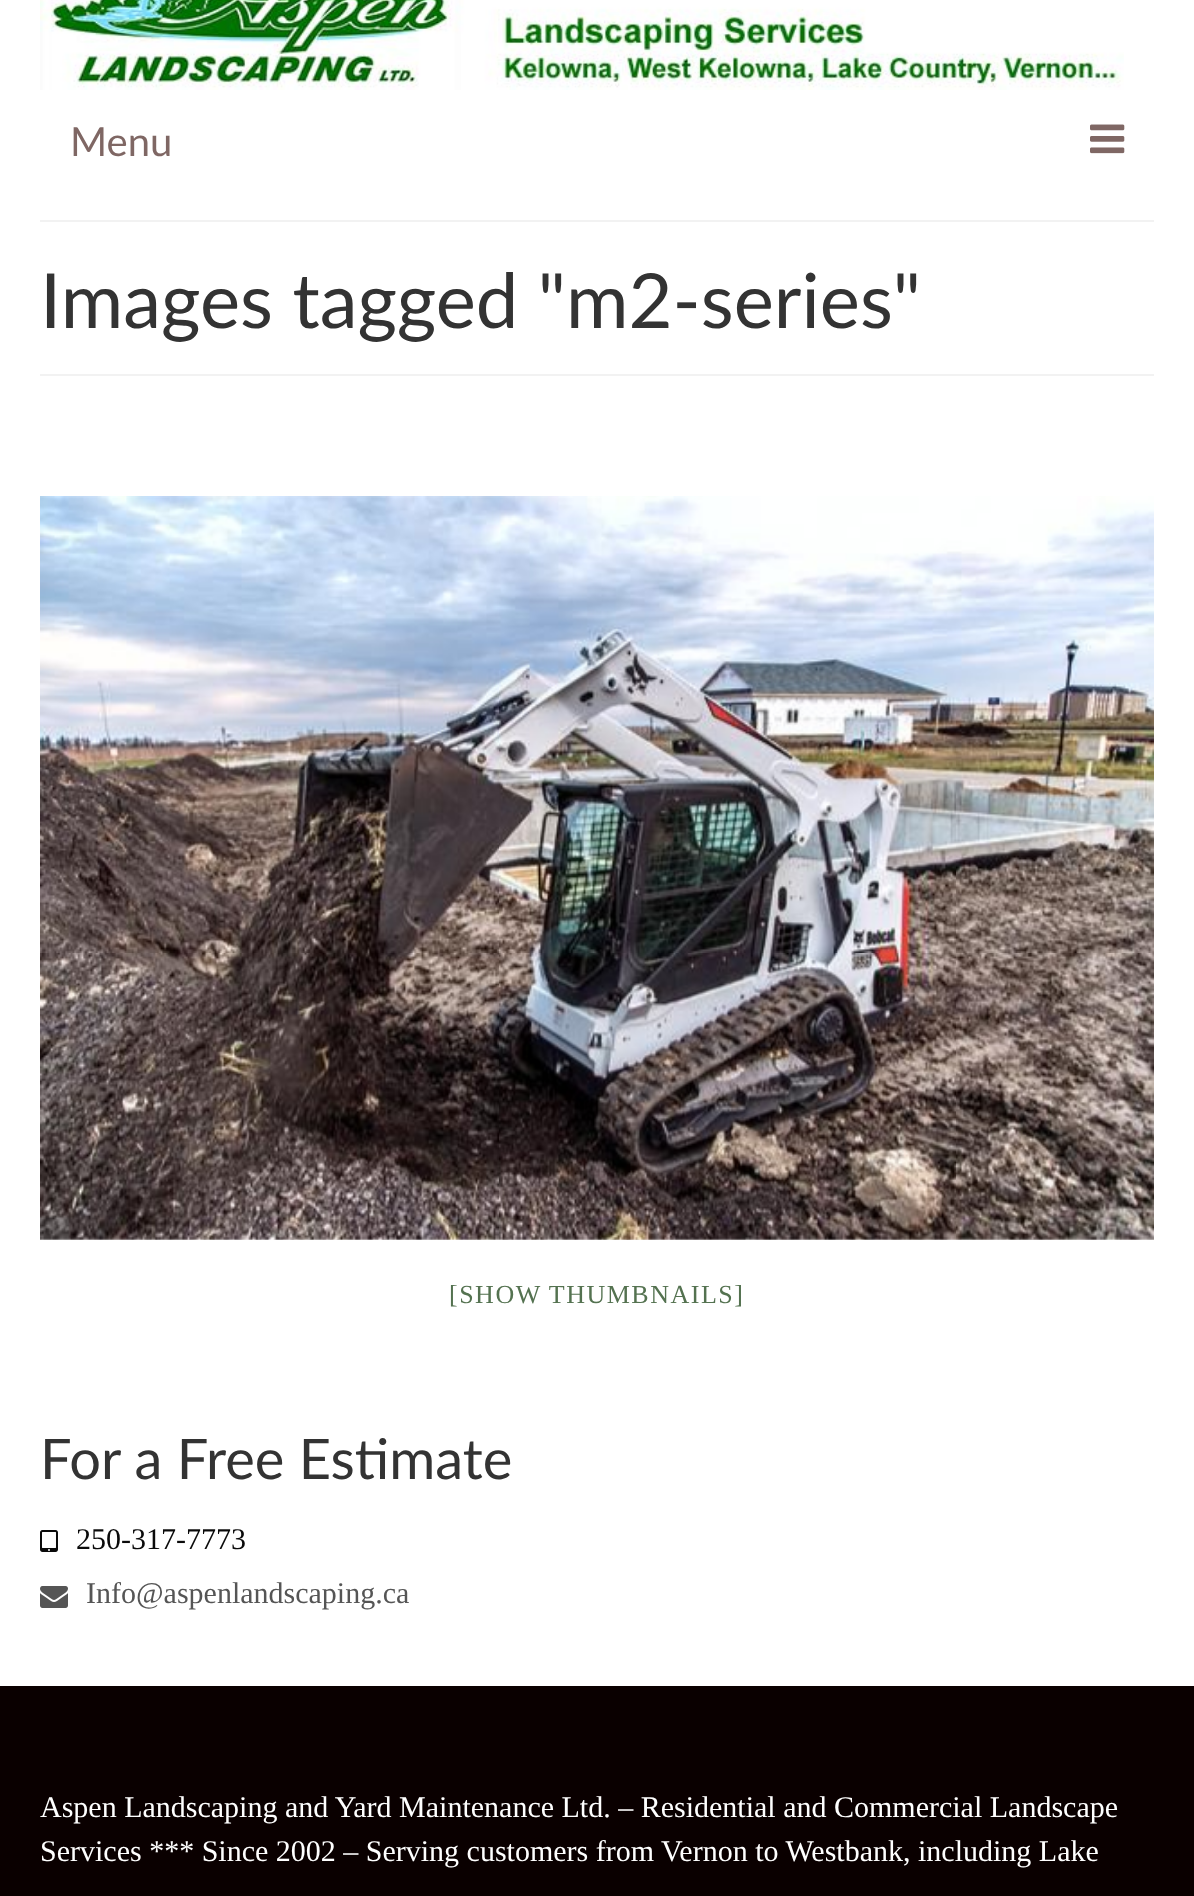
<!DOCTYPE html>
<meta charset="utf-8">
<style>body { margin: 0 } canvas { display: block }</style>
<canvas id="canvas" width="1194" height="1896"></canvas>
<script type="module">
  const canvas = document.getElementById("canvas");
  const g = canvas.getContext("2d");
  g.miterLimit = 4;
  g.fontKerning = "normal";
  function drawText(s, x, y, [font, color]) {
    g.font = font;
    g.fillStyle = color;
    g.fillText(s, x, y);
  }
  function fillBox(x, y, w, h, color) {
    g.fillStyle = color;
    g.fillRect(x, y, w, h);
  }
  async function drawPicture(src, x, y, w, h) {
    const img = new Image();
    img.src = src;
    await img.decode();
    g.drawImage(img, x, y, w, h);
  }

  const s1 = ["40px Lato", "#7F6764"];
  const s2 = ["76px Lato", "#333333"];
  const s3 = ["26px Liberation Serif", "#547250"];
  const s4 = ["56px Lato", "#333333"];
  const s5 = ["30px Liberation Serif", "#0A0A0A"];
  const s6 = ["30px Liberation Serif", "#555555"];
  const s7 = ["30px Liberation Serif", "#FFFFFF"];

  fillBox(0, 0, 1194, 1896, "#FFFFFF");
  await drawPicture("pic1.png", 40, 0, 1084, 90);
  drawText("Menu", 70, 156, s1);
  await drawPicture("pic2.png", 1090, 124, 35, 30);
  fillBox(40, 220, 1114, 2, "#F2F2F2");
  fillBox(40, 374, 1114, 2, "#F2F2F2");
  drawText("Images tagged \"m2-series\"", 40, 328, s2);
  await drawPicture("pic3.png", 40, 496, 1114, 744);
  g.letterSpacing = "1.5px";
  drawText("[SHOW THUMBNAILS]", 449, 1303, s3);
  g.letterSpacing = "0px";
  drawText("For a Free Estimate", 40, 1479, s4);
  await drawPicture("pic4.png", 40, 1530, 18, 22);
  drawText("250-317-7773", 76, 1549, s5);
  await drawPicture("pic5.png", 40, 1586, 28, 22);
  drawText("Info@aspenlandscaping.ca", 86, 1603, s6);
  fillBox(0, 1686, 1194, 210, "#0A0000");
  drawText("Aspen Landscaping and Yard Maintenance Ltd. – Residential and Commercial Landscape", 40, 1817, s7);
  drawText("Services *** Since 2002 – Serving customers from Vernon to Westbank, including Lake", 40, 1861, s7);
</script>
